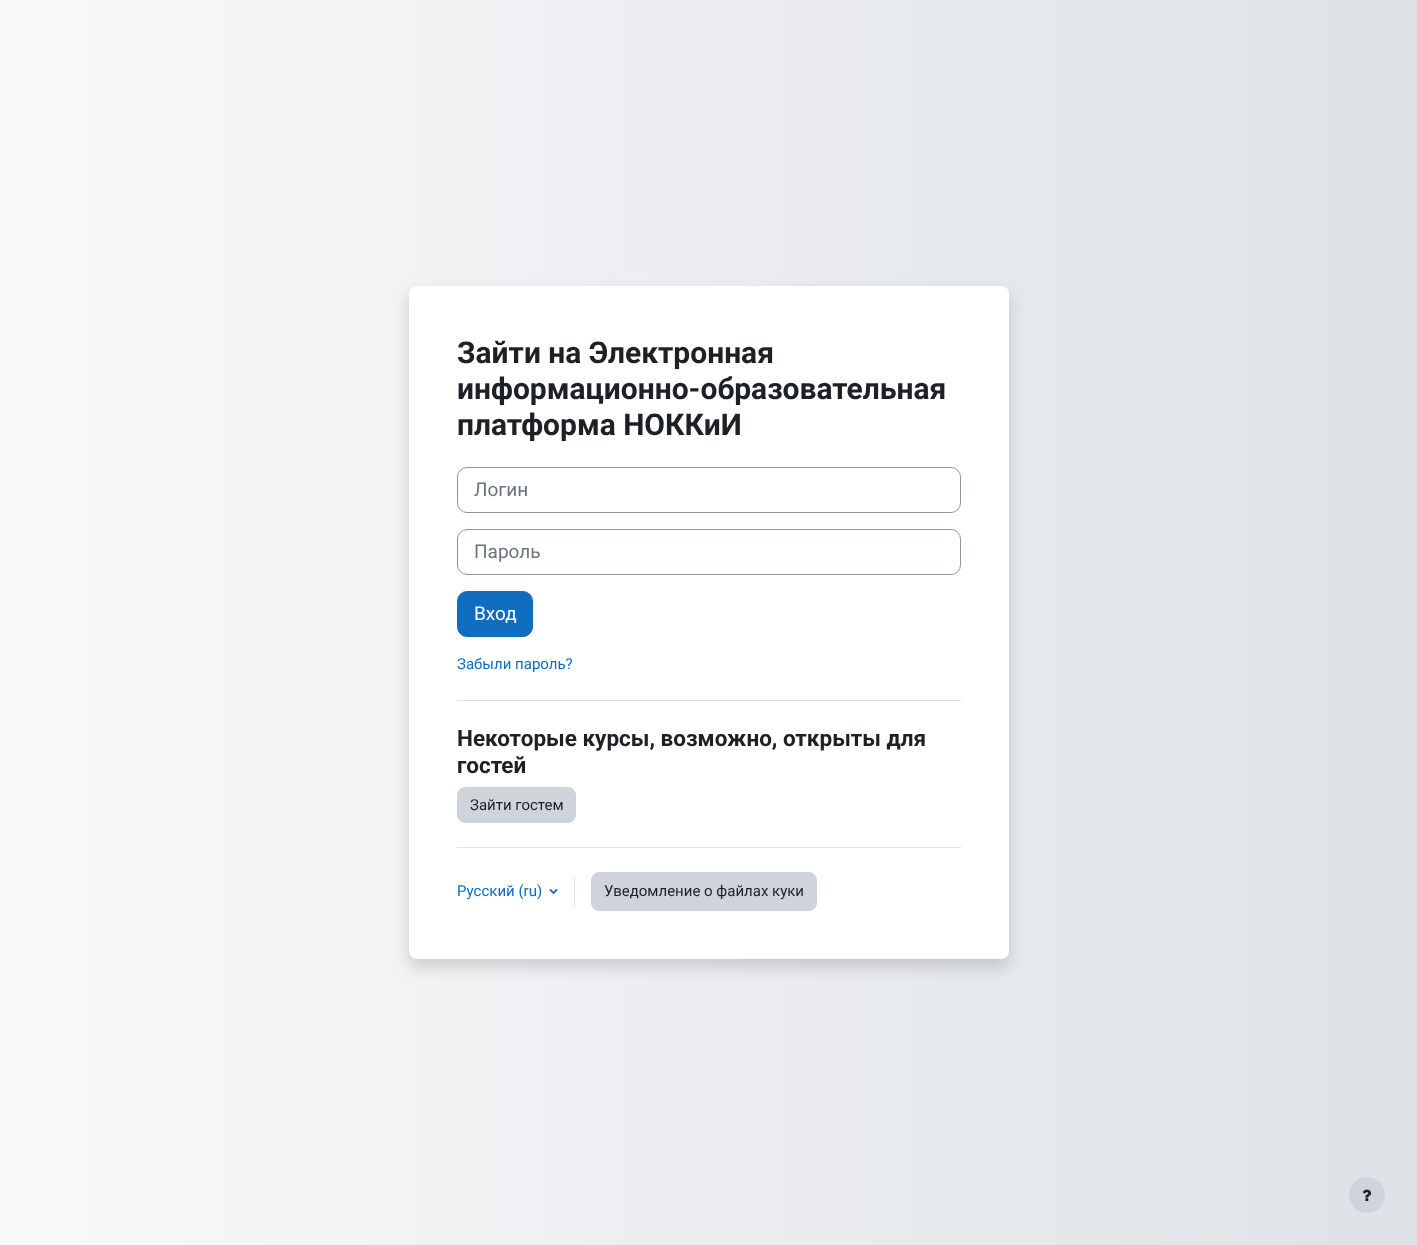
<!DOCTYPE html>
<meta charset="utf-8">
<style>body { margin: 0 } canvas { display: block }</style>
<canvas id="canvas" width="1417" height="1245"></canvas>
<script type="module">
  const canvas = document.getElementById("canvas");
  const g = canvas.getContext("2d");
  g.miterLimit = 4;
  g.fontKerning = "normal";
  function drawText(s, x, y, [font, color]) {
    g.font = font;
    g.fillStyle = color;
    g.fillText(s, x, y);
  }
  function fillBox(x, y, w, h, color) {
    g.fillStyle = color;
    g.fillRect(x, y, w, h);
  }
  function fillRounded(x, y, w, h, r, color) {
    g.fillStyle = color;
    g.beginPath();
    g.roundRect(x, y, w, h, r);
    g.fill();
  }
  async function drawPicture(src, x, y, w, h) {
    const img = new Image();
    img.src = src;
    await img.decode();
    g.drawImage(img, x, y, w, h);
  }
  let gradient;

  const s1 = ["bold 30px Roboto", "#1D2125"];
  const s2 = ["19px Roboto", "#6A737B"];
  const s3 = ["19px Roboto", "#FFFFFF"];
  const s4 = ["15px Roboto", "#0F6CBF"];
  const s5 = ["bold 22.5px Roboto", "#1D2125"];
  const s6 = ["15px Roboto", "#1D2125"];

  fillBox(0, 0, 1417, 1245, "#FFFFFF");
  gradient = g.createLinearGradient(0, 623, 1417, 623);
  gradient.addColorStop(0, "#F8F9FA");
  gradient.addColorStop(1, "#DEE2E6");
  g.fillStyle = gradient;
  g.fillRect(0, 0, 1417, 1245);
  g.fillStyle = "rgba(0, 0, 0, 0.15)";
  g.filter = "blur(8px)";
  g.beginPath();
  g.roundRect(409, 294, 600, 673, 8);
  g.fill();
  g.filter = "none";
  fillRounded(409, 286, 600, 673, 8, "#FFFFFF");
  drawText("Зайти на Электронная", 457, 363, s1);
  drawText("информационно-образовательная", 457, 399, s1);
  drawText("платформа НОККиИ", 457, 435, s1);
  g.beginPath();
  g.roundRect(457.5, 467.5, 503, 45, 9.5);
  g.strokeStyle = "#8F959E";
  g.stroke();
  drawText("Логин", 474, 496, s2);
  g.beginPath();
  g.roundRect(457.5, 529.5, 503, 45, 9.5);
  g.stroke();
  drawText("Пароль", 474, 558, s2);
  g.fillStyle = "#0F6CBF";
  g.beginPath();
  g.roundRect(457.5, 591.5, 75, 45, 9.5);
  g.fill();
  g.strokeStyle = "#0F6CBF";
  g.stroke();
  drawText("Вход", 474, 620, s3);
  drawText("Забыли пароль?", 457, 669, s4);
  fillBox(457, 700, 504, 1, "#DEE2E6");
  drawText("Некоторые курсы, возможно, открыты для", 457, 746, s5);
  drawText("гостей", 457, 773, s5);
  g.fillStyle = "#CED4DA";
  g.beginPath();
  g.roundRect(457.5, 787.5, 118, 35, 7.5);
  g.fill();
  g.strokeStyle = "#CED4DA";
  g.stroke();
  drawText("Зайти гостем", 470, 810, s6);
  fillBox(457, 847, 504, 1, "#DEE2E6");
  drawText("Русский (ru)", 457, 896, s4);
  await drawPicture("pic1.png", 549, 889, 9, 6);
  fillBox(574, 877, 1, 30, "#DEE2E6");
  g.fillStyle = "#CED4DA";
  g.beginPath();
  g.roundRect(591.5, 872.5, 225, 38, 7.5);
  g.fill();
  g.stroke();
  drawText("Уведомление о файлах куки", 604, 896, s6);
  g.fillStyle = "#CED4DA";
  g.beginPath();
  g.arc(1367, 1195, 18, 0, Math.PI * 2);
  g.fill();
  await drawPicture("pic2.png", 1362, 1189, 10, 12);
</script>
